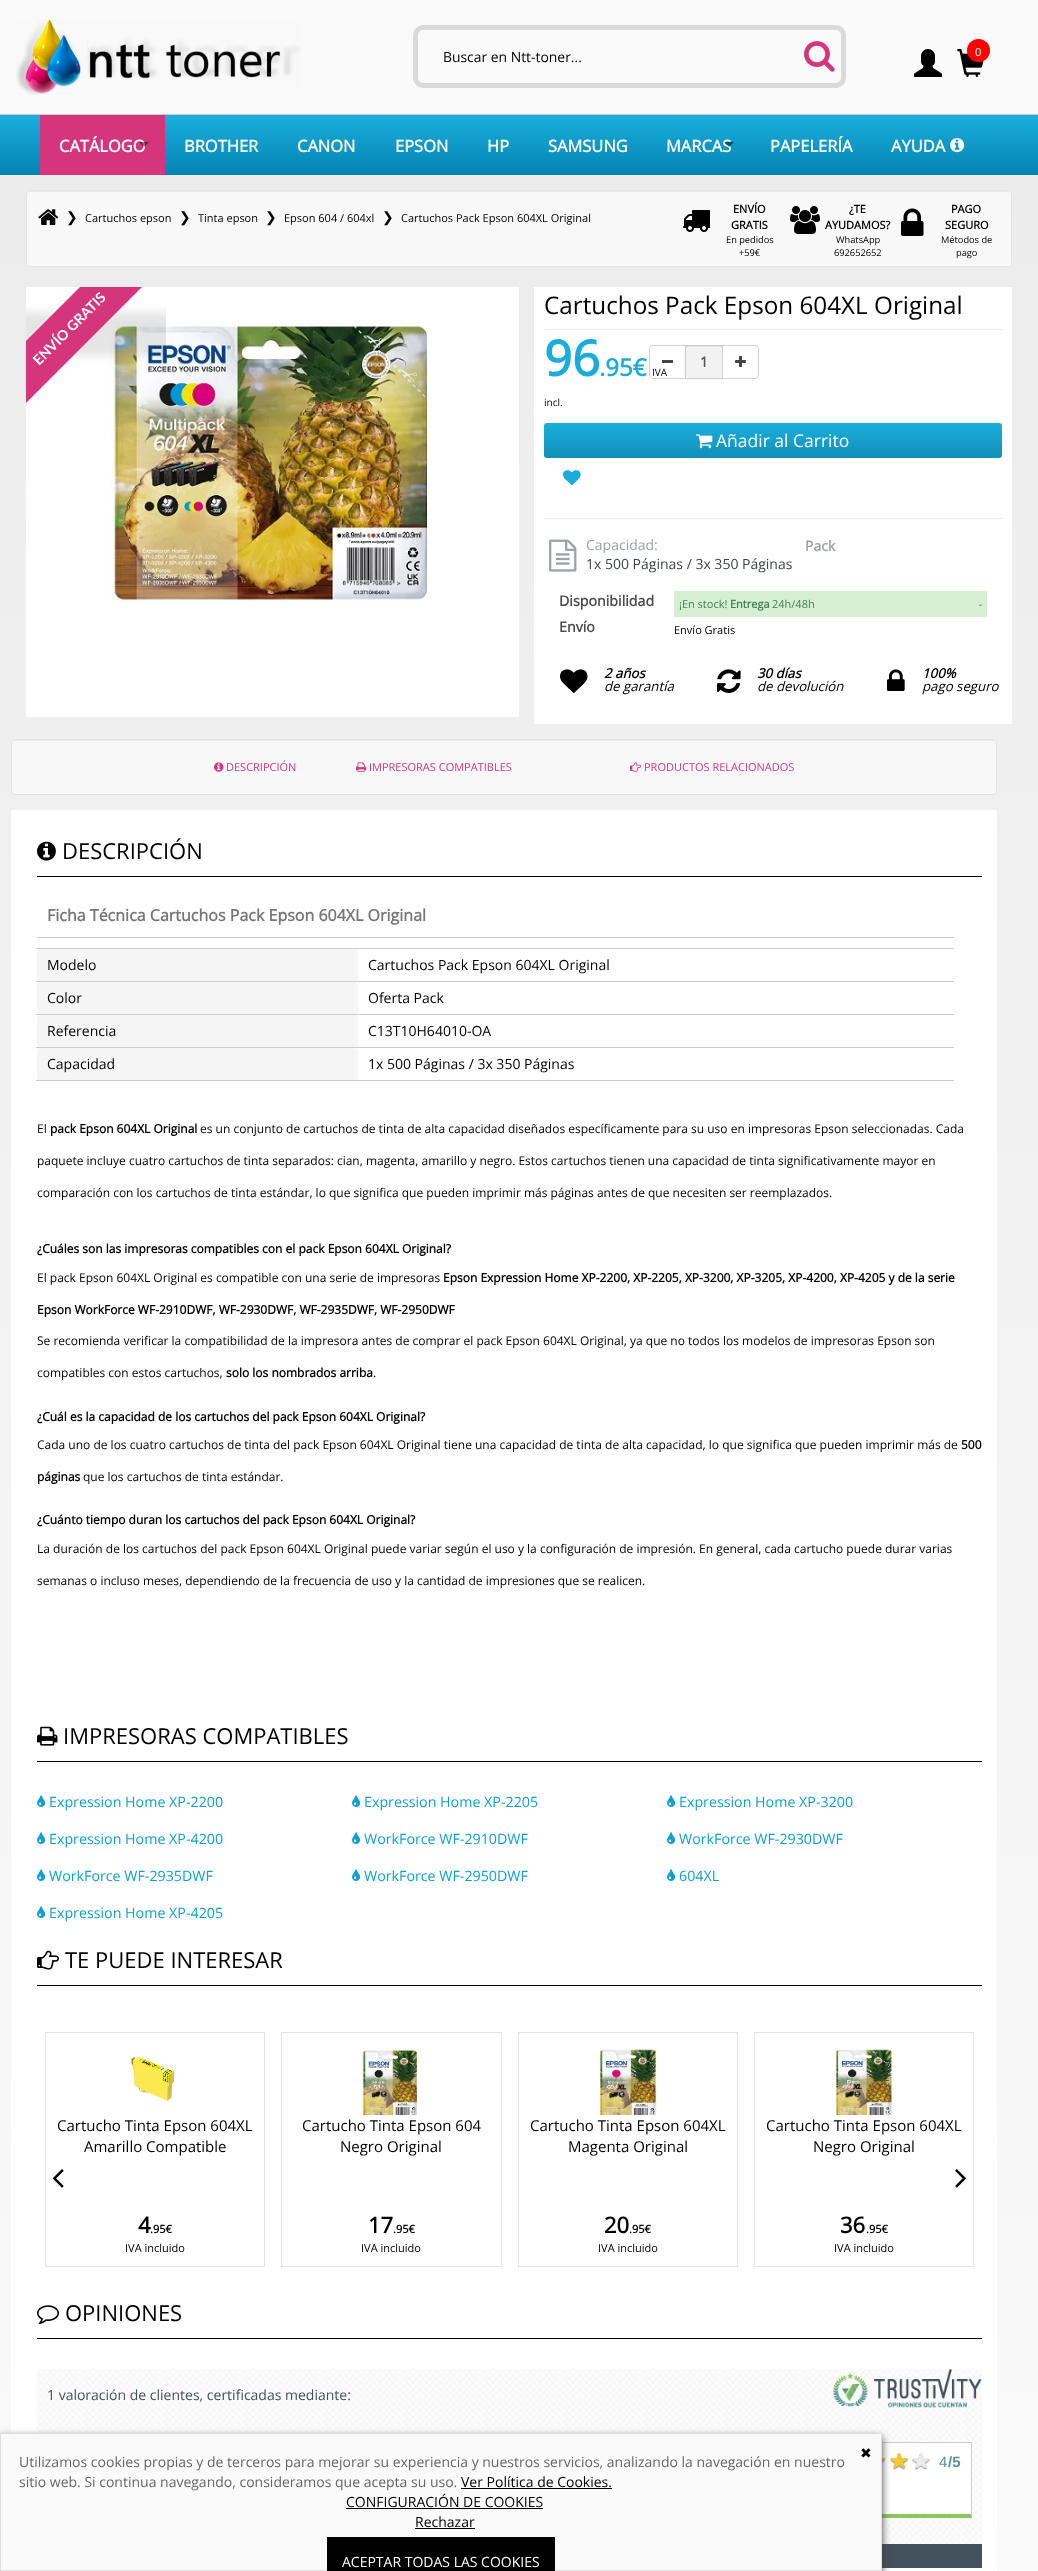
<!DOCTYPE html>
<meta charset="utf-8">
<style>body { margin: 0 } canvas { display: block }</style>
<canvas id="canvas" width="1038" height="2571"></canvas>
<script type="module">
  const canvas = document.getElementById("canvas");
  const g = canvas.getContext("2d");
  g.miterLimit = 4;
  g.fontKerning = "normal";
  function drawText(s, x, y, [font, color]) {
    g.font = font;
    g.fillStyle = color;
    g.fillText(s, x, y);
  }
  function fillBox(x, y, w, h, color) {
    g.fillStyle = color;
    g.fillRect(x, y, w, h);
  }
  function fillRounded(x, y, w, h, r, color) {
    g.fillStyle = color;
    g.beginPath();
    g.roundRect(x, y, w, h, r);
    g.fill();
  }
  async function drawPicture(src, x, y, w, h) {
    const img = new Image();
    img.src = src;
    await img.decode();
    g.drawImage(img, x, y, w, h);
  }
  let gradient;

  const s1 = ["13.9px Open Sans", "#000000"];
  const s2 = ["11px Open Sans", "#FFFFFF"];
  const s3 = ["bold 16.5px Open Sans", "#FFFFFF"];
  const s4 = ["14px DejaVu Sans", "#000000"];
  const s5 = ["11px Open Sans", "#000000"];
  const s6 = ["bold 11px Open Sans", "#000000"];
  const s7 = ["9.25px Open Sans", "#000000"];
  const s8 = ["24.25px Open Sans", "#000000"];
  const s9 = ["bold 49px Open Sans", "#1AADDB"];
  const s10 = ["bold 24px Open Sans", "#1AADDB"];
  const s11 = ["10px Open Sans", "#000000"];
  const s12 = ["bold 14px Open Sans", "#555555"];
  const s13 = ["17.5px Open Sans", "#FFFFFF"];
  const s14 = ["14px Open Sans", "#9CA2A7"];
  const s15 = ["14px Open Sans", "#3F4547"];
  const s16 = ["bold 14px Open Sans", "#9CA2A7"];
  const s17 = ["bold 14.25px Open Sans", "#4C4C4C"];
  const s18 = ["11px Open Sans", "#458057"];
  const s19 = ["bold 11px Open Sans", "#458057"];
  const s20 = ["italic 11px Open Sans", "#458057"];
  const s21 = ["italic bold 13.25px Open Sans", "#000000"];
  const s22 = ["italic 13.25px Open Sans", "#000000"];
  const s23 = ["11px Open Sans", "#D5357D"];
  const s24 = ["22px Open Sans", "#000000"];
  const s25 = ["bold 16px Open Sans", "#777777"];
  const s26 = ["14px Open Sans", "#000000"];
  const s27 = ["12px Open Sans", "#000000"];
  const s28 = ["bold 12px Open Sans", "#000000"];
  const s29 = ["14.25px Open Sans", "#12A1CF"];
  const s30 = ["15px Open Sans", "#000000"];
  const s31 = ["bold 22px Open Sans", "#000000"];
  const s32 = ["14px Open Sans", "#43515E"];
  const s33 = ["15px Liberation Sans", "#589492"];
  const s34 = ["bold 15px Liberation Sans", "#589492"];
  const s35 = ["14px Open Sans", "#666666"];
  const s36 = ["14px Open Sans", "#FFFFFF"];

  fillBox(0, 0, 1038, 2571, "#FFFFFF");
  fillBox(0, 114, 1038, 1, "#CCCCCC");
  fillBox(0, 0, 1038, 114, "#FAFAFA");
  await drawPicture("pic1.png", 16, 19, 285, 76);
  g.beginPath();
  g.roundRect(415.5, 27.5, 428, 58, 7.5);
  g.strokeStyle = "#DADADA";
  g.lineWidth = 5;
  g.stroke();
  drawText("Buscar en Ntt-toner...", 443, 62, s1);
  await drawPicture("pic2.png", 804, 41, 31, 31);
  await drawPicture("pic3.png", 914, 49, 28, 28);
  await drawPicture("pic4.png", 957, 49, 27, 28);
  gradient = g.createRadialGradient(979, 51, 0, 979, 51, 16);
  gradient.addColorStop(0.01, "#FF0000");
  gradient.addColorStop(0.98, "#FF0000");
  gradient.addColorStop(0.98, "#FFFFFF");
  g.fillStyle = gradient;
  g.beginPath();
  g.arc(978.5, 50.5, 11.5, 0, Math.PI * 2);
  g.fill();
  drawText("0", 975, 56, s2);
  gradient = g.createLinearGradient(519, 115, 519, 175);
  gradient.addColorStop(0, "#1AAFDD");
  gradient.addColorStop(1, "#0383B2");
  g.fillStyle = gradient;
  g.fillRect(0, 115, 1038, 60);
  fillBox(40, 115, 125, 60, "#D5357D");
  drawText("CATÁLOGO", 59, 152, s3);
  g.fillStyle = "rgba(0, 0, 0, 0.5)";
  g.beginPath();
  g.moveTo(139, 142);
  g.lineTo(149, 142);
  g.lineTo(144, 147);
  g.closePath();
  g.fill();
  drawText("BROTHER", 184, 152, s3);
  drawText("CANON", 297, 152, s3);
  drawText("EPSON", 395, 152, s3);
  drawText("HP", 487, 152, s3);
  drawText("SAMSUNG", 548, 152, s3);
  drawText("MARCAS", 666, 152, s3);
  g.fillStyle = "rgba(0, 0, 0, 0.5)";
  g.beginPath();
  g.moveTo(724, 142);
  g.lineTo(734, 142);
  g.lineTo(729, 147);
  g.closePath();
  g.fill();
  drawText("PAPELERÍA", 770, 152, s3);
  drawText("AYUDA", 891, 152, s3);
  await drawPicture("pic5.png", 950, 138, 15, 15);
  gradient = g.createLinearGradient(519, 175, 519, 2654);
  gradient.addColorStop(0, "#ECECEC");
  gradient.addColorStop(1, "#FAFAFA");
  g.fillStyle = gradient;
  g.fillRect(0, 175, 1038, 2396);
  fillRounded(26, 190, 986, 77, 4, "#F8F8F8");
  g.fillStyle = "#ECECEC";
  g.beginPath();
  g.moveTo(30, 192);
  g.lineTo(1008, 192);
  g.bezierCurveTo(1010, 192, 1011, 193, 1011, 195);
  g.bezierCurveTo(1011, 193, 1010, 191, 1008, 191);
  g.lineTo(30, 191);
  g.bezierCurveTo(28, 191, 27, 193, 27, 195);
  g.bezierCurveTo(27, 193, 28, 192, 30, 192);
  g.closePath();
  g.fill();
  g.beginPath();
  g.roundRect(26.5, 190.5, 985, 76, 3.5);
  g.strokeStyle = "#E3E3E3";
  g.lineWidth = 1;
  g.stroke();
  await drawPicture("pic6.png", 38, 209, 21, 16);
  drawText("❯", 66, 222, s4);
  drawText("Cartuchos epson", 85, 222, s5);
  drawText("❯", 179, 222, s4);
  drawText("Tinta epson", 198, 222, s5);
  drawText("❯", 265, 222, s4);
  drawText("Epson 604 / 604xl", 284, 222, s5);
  drawText("❯", 382, 222, s4);
  drawText("Cartuchos Pack Epson 604XL Original", 401, 222, s5);
  await drawPicture("pic7.png", 683, 210, 27, 22);
  drawText("ENVÍO", 733, 213, s6);
  drawText("GRATIS", 731, 229, s6);
  drawText("En pedidos", 726, 243, s7);
  drawText("+59€", 739, 256, s7);
  await drawPicture("pic8.png", 790, 206, 30, 28);
  drawText("¿TE", 849, 213, s6);
  drawText("AYUDAMOS?", 825, 229, s6);
  drawText("WhatsApp", 836, 243, s7);
  drawText("692652652", 834, 256, s7);
  await drawPicture("pic9.png", 901, 208, 23, 28);
  drawText("PAGO", 951, 213, s6);
  drawText("SEGURO", 945, 229, s6);
  drawText("Métodos de", 941, 243, s7);
  drawText("pago", 956, 256, s7);
  fillBox(26, 287, 493, 430, "#FFFFFF");
  await drawPicture("pic10.png", 110, 322, 319, 281);
  g.save();
  g.beginPath();
  g.rect(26, 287, 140, 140);
  g.clip();
  g.fillStyle = "rgba(0, 0, 0, 0.1)";
  g.filter = "blur(5px)";
  g.beginPath();
  g.rect(-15, 312, 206, 44);
  g.fill();
  g.filter = "none";
  g.restore();
  g.save();
  g.beginPath();
  g.rect(26, 287, 140, 140);
  g.clip();
  g.fillStyle = "#D5357D";
  g.beginPath();
  g.moveTo(-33, 400);
  g.lineTo(140, 227);
  g.lineTo(171, 258);
  g.lineTo(-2, 431);
  g.closePath();
  g.fill();
  g.restore();
  g.font = "bold 14px Lato";
  g.save();
  g.translate(39, 366);
  g.rotate(-45 * Math.PI / 180);
  g.fillText("ENVÍO GRATIS", 0, 0);
  g.restore();
  fillBox(534, 287, 478, 437, "#FFFFFF");
  fillBox(544, 329, 458, 1, "#ECECEC");
  drawText("Cartuchos Pack Epson 604XL Original", 544, 314, s8);
  fillBox(544, 518, 458, 1, "#ECECEC");
  drawText("96", 544, 376, s9);
  drawText(".95€", 599, 376, s10);
  drawText("IVA", 652, 376, s11);
  drawText("incl.", 544, 406, s11);
  g.beginPath();
  g.roundRect(649.5, 345.5, 36, 33, [3.5, 0, 0, 3.5]);
  g.strokeStyle = "#D2D2D2";
  g.stroke();
  fillBox(662, 360, 11, 3, "#444444");
  fillBox(686, 347, 36, 31, "#F2F2F2");
  fillBox(686, 346, 36, 1, "#E0E0E0");
  g.strokeStyle = "#CCCCCC";
  g.strokeRect(685.5, 345.5, 37, 33);
  drawText("1", 700, 367, s12);
  g.beginPath();
  g.roundRect(722.5, 345.5, 36, 33, [0, 3.5, 3.5, 0]);
  g.strokeStyle = "#D2D2D2";
  g.stroke();
  await drawPicture("pic11.png", 735, 356, 11, 11);
  gradient = g.createLinearGradient(773, 423, 773, 458);
  gradient.addColorStop(0, "#1AAEDC");
  gradient.addColorStop(1, "#1290B7");
  g.fillStyle = gradient;
  g.beginPath();
  g.roundRect(544, 423, 458, 35, 3);
  g.fill();
  await drawPicture("pic12.png", 696, 434, 17, 15);
  drawText("Añadir al Carrito", 716, 447, s13);
  await drawPicture("pic13.png", 563, 470, 18, 16);
  await drawPicture("pic14.png", 549, 539, 28, 33);
  drawText("Capacidad:", 586, 550, s14);
  drawText("1x 500 Páginas / 3x 350 Páginas", 586, 569, s15);
  drawText("Pack", 805, 551, s16);
  drawText("Disponibilidad", 559, 606, s17);
  fillBox(674, 591, 313, 26, "#D6EED1");
  drawText("¡En stock!", 679, 608, s18);
  drawText("Entrega", 730, 608, s19);
  drawText("24h/48h", 772, 608, s18);
  drawText("-", 978, 608, s20);
  drawText("Envío", 559, 632, s17);
  drawText("Envío Gratis", 674, 634, s5);
  await drawPicture("pic15.png", 560, 669, 28, 24);
  drawText("2 años", 604, 678, s21);
  drawText("de garantía", 604, 691, s22);
  await drawPicture("pic16.png", 717, 669, 24, 24);
  drawText("30 días", 757, 678, s21);
  drawText("de devolución", 757, 691, s22);
  await drawPicture("pic17.png", 887, 669, 18, 22);
  drawText("100%", 922, 678, s21);
  drawText("pago seguro", 922, 691, s22);
  fillRounded(11, 739, 986, 56, 4, "#F8F8F8");
  g.fillStyle = "#ECECEC";
  g.beginPath();
  g.moveTo(15, 741);
  g.lineTo(993, 741);
  g.bezierCurveTo(995, 741, 996, 742, 996, 744);
  g.bezierCurveTo(996, 742, 995, 740, 993, 740);
  g.lineTo(15, 740);
  g.bezierCurveTo(13, 740, 12, 742, 12, 744);
  g.bezierCurveTo(12, 742, 13, 741, 15, 741);
  g.closePath();
  g.fill();
  g.beginPath();
  g.roundRect(11.5, 739.5, 985, 55, 3.5);
  g.strokeStyle = "#E3E3E3";
  g.stroke();
  await drawPicture("pic18.png", 214, 762, 10, 10);
  drawText("DESCRIPCIÓN", 226, 771, s23);
  await drawPicture("pic19.png", 356, 762, 11, 10);
  drawText("IMPRESORAS COMPATIBLES", 369, 771, s23);
  await drawPicture("pic20.png", 630, 762, 11, 10);
  drawText("PRODUCTOS RELACIONADOS", 644, 771, s23);
  fillBox(11, 810, 986, 1761, "#FFFFFF");
  fillBox(37, 876, 945, 1, "#000000");
  await drawPicture("pic21.png", 37, 841, 19, 20);
  drawText("DESCRIPCIÓN", 62, 859, s24);
  fillBox(37, 937, 917, 1, "#CCCCCC");
  drawText("Ficha Técnica Cartuchos Pack Epson 604XL Original", 47, 921, s25);
  fillRounded(37, 949, 321, 33, 4, "#F5F5F5");
  drawText("Modelo", 47, 970, s26);
  fillBox(36, 948, 918, 1, "#CCCCCC");
  drawText("Cartuchos Pack Epson 604XL Original", 368, 970, s26);
  fillRounded(37, 982, 321, 33, 4, "#F5F5F5");
  drawText("Color", 47, 1003, s26);
  fillBox(36, 981, 918, 1, "#CCCCCC");
  drawText("Oferta Pack", 368, 1003, s26);
  fillRounded(37, 1015, 321, 33, 4, "#F5F5F5");
  drawText("Referencia", 47, 1036, s26);
  fillBox(36, 1014, 918, 1, "#CCCCCC");
  drawText("C13T10H64010-OA", 368, 1036, s26);
  fillRounded(37, 1048, 321, 33, 4, "#F5F5F5");
  drawText("Capacidad", 47, 1069, s26);
  fillBox(36, 1047, 918, 1, "#CCCCCC");
  drawText("1x 500 Páginas / 3x 350 Páginas", 368, 1069, s26);
  fillBox(36, 1080, 918, 1, "#CCCCCC");
  drawText("El", 37, 1133, s27);
  drawText("pack Epson 604XL Original", 50, 1133, s28);
  drawText("es un conjunto de cartuchos de tinta de alta capacidad diseñados específicamente para su uso en impresoras Epson seleccionadas. Cada", 200, 1133, s27);
  drawText("paquete incluye cuatro cartuchos de tinta separados: cian, magenta, amarillo y negro. Estos cartuchos tienen una capacidad de tinta significativamente mayor en", 37, 1165, s27);
  drawText("comparación con los cartuchos de tinta estándar, lo que significa que pueden imprimir más páginas antes de que necesiten ser reemplazados.", 37, 1197, s27);
  drawText("¿Cuáles son las impresoras compatibles con el pack Epson 604XL Original?", 37, 1253, s28);
  drawText("El pack Epson 604XL Original es compatible con una serie de impresoras", 37, 1282, s27);
  drawText("Epson Expression Home XP-2200, XP-2205, XP-3200, XP-3205, XP-4200, XP-4205 y de la serie", 443, 1282, s28);
  drawText("Epson WorkForce WF-2910DWF, WF-2930DWF, WF-2935DWF, WF-2950DWF", 37, 1314, s28);
  drawText("Se recomienda verificar la compatibilidad de la impresora antes de comprar el pack Epson 604XL Original, ya que no todos los modelos de impresoras Epson son", 37, 1345, s27);
  drawText("compatibles con estos cartuchos,", 37, 1377, s27);
  drawText("solo los nombrados arriba", 226, 1377, s28);
  drawText(".", 373, 1377, s27);
  drawText("¿Cuál es la capacidad de los cartuchos del pack Epson 604XL Original?", 37, 1421, s28);
  drawText("Cada uno de los cuatro cartuchos de tinta del pack Epson 604XL Original tiene una capacidad de tinta de alta capacidad, lo que significa que pueden imprimir más de", 37, 1449, s27);
  drawText("500", 961, 1449, s28);
  drawText("páginas", 37, 1481, s28);
  drawText("que los cartuchos de tinta estándar.", 83, 1481, s27);
  drawText("¿Cuánto tiempo duran los cartuchos del pack Epson 604XL Original?", 37, 1524, s28);
  drawText("La duración de los cartuchos del pack Epson 604XL Original puede variar según el uso y la configuración de impresión. En general, cada cartucho puede durar varias", 37, 1553, s27);
  drawText("semanas o incluso meses, dependiendo de la frecuencia de uso y la cantidad de impresiones que se realicen.", 37, 1585, s27);
  fillBox(37, 1761, 945, 1, "#000000");
  await drawPicture("pic22.png", 37, 1726, 21, 20);
  drawText("IMPRESORAS COMPATIBLES", 63, 1744, s24);
  await drawPicture("pic23.png", 37, 1795, 9, 12);
  drawText("Expression Home XP-2200", 49, 1807, s29);
  await drawPicture("pic23.png", 352, 1795, 9, 12);
  drawText("Expression Home XP-2205", 364, 1807, s29);
  await drawPicture("pic23.png", 667, 1795, 9, 12);
  drawText("Expression Home XP-3200", 679, 1807, s29);
  await drawPicture("pic23.png", 37, 1832, 9, 12);
  drawText("Expression Home XP-4200", 49, 1844, s29);
  await drawPicture("pic23.png", 352, 1832, 9, 12);
  drawText("WorkForce WF-2910DWF", 364, 1844, s29);
  await drawPicture("pic23.png", 667, 1832, 9, 12);
  drawText("WorkForce WF-2930DWF", 679, 1844, s29);
  await drawPicture("pic23.png", 37, 1869, 9, 12);
  drawText("WorkForce WF-2935DWF", 49, 1881, s29);
  await drawPicture("pic23.png", 352, 1869, 9, 12);
  drawText("WorkForce WF-2950DWF", 364, 1881, s29);
  await drawPicture("pic23.png", 667, 1869, 9, 12);
  drawText("604XL", 679, 1881, s29);
  await drawPicture("pic23.png", 37, 1906, 9, 12);
  drawText("Expression Home XP-4205", 49, 1918, s29);
  fillBox(37, 1985, 945, 1, "#000000");
  await drawPicture("pic24.png", 37, 1950, 22, 20);
  drawText("TE PUEDE INTERESAR", 65, 1968, s24);
  g.strokeStyle = "#E4E4E4";
  g.strokeRect(45.5, 2032.5, 219, 234);
  await drawPicture("pic25.png", 130, 2056, 45, 45);
  drawText("Cartucho Tinta Epson 604XL", 57, 2131, s30);
  drawText("Amarillo Compatible", 84, 2152, s30);
  drawText("4", 138, 2233, s31);
  drawText(".95€", 150, 2233, s6);
  drawText("IVA incluido", 125, 2252, s5);
  g.strokeRect(281.5, 2032.5, 220, 234);
  await drawPicture("pic26.png", 362, 2050, 56, 65);
  drawText("Cartucho Tinta Epson 604", 302, 2131, s30);
  drawText("Negro Original", 340, 2152, s30);
  drawText("17", 368, 2233, s31);
  drawText(".95€", 393, 2233, s6);
  drawText("IVA incluido", 361, 2252, s5);
  g.strokeRect(518.5, 2032.5, 219, 234);
  await drawPicture("pic27.png", 599, 2049, 58, 66);
  drawText("Cartucho Tinta Epson 604XL", 530, 2131, s30);
  drawText("Magenta Original", 568, 2152, s30);
  drawText("20", 604, 2233, s31);
  drawText(".95€", 629, 2233, s6);
  drawText("IVA incluido", 598, 2252, s5);
  g.strokeRect(754.5, 2032.5, 219, 234);
  await drawPicture("pic28.png", 835, 2049, 57, 66);
  drawText("Cartucho Tinta Epson 604XL", 766, 2131, s30);
  drawText("Negro Original", 813, 2152, s30);
  drawText("36", 840, 2233, s31);
  drawText(".95€", 866, 2233, s6);
  drawText("IVA incluido", 834, 2252, s5);
  await drawPicture("pic29.png", 52, 2169, 12, 19);
  await drawPicture("pic30.png", 955, 2169, 11, 19);
  fillBox(37, 2338, 945, 1, "#000000");
  await drawPicture("pic31.png", 37, 2305, 22, 20);
  drawText("OPINIONES", 65, 2321, s24);
  await drawPicture("pic32.png", 37, 2369, 945, 175);
  drawText("1 valoración de clientes, certificadas mediante:", 47, 2400, s32);
  await drawPicture("pic33.png", 833, 2369, 149, 39);
  fillBox(882, 2443, 89, 71, "#FFFFFF");
  fillBox(882, 2442, 90, 1, "#CDCDCD");
  g.beginPath();
  g.moveTo(972, 2442);
  g.lineTo(972, 2518);
  g.lineTo(971, 2514);
  g.lineTo(971, 2443);
  g.closePath();
  g.fill();
  g.fillStyle = "#8CC75B";
  g.beginPath();
  g.moveTo(972, 2518);
  g.lineTo(47, 2518);
  g.lineTo(48, 2514);
  g.lineTo(971, 2514);
  g.closePath();
  g.fill();
  await drawPicture("pic34.png", 882, 2458, 4, 11);
  await drawPicture("pic35.png", 890, 2453, 19, 17);
  await drawPicture("pic36.png", 912, 2453, 18, 17);
  drawText("4", 939, 2467, s33);
  drawText("/5", 948, 2467, s34);
  fillBox(882, 2544, 100, 24, "#43515E");
  g.fillStyle = "#444444";
  g.filter = "blur(4px)";
  g.beginPath();
  g.rect(0, 2437, 882, 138);
  g.fill();
  g.filter = "none";
  g.fillStyle = "#FAFAFA";
  g.beginPath();
  g.rect(0.5, 2433.5, 881, 137);
  g.fill();
  g.strokeStyle = "#DDDDDD";
  g.stroke();
  drawText("✖", 860, 2458, s4);
  drawText("Utilizamos cookies propias y de terceros para mejorar su experiencia y nuestros servicios, analizando la navegación en nuestro", 19, 2467, s35);
  drawText("sitio web. Si continua navegando, consideramos que acepta su uso.", 19, 2487, s35);
  drawText("Ver Política de Cookies.", 461, 2487, s26);
  fillBox(461, 2488, 151, 1, "#000000");
  drawText("CONFIGURACIÓN DE COOKIES", 346, 2507, s26);
  fillBox(346, 2508, 197, 1, "#000000");
  drawText("Rechazar", 415, 2527, s26);
  fillBox(415, 2528, 60, 1, "#000000");
  fillBox(327, 2537, 228, 34, "#000000");
  drawText("ACEPTAR TODAS LAS COOKIES", 342, 2567, s36);
</script>
